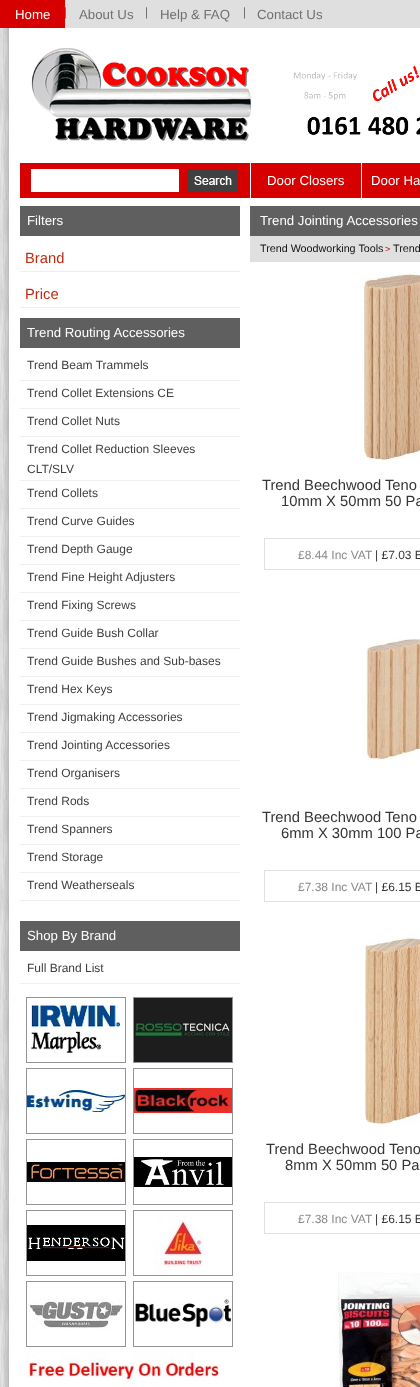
<!DOCTYPE html>
<meta charset="utf-8">
<style>body { margin: 0 } canvas { display: block }</style>
<canvas id="canvas" width="420" height="1387"></canvas>
<script type="module">
  const canvas = document.getElementById("canvas");
  const g = canvas.getContext("2d");
  g.miterLimit = 4;
  g.fontKerning = "normal";
  function drawText(s, x, y, [font, color]) {
    g.font = font;
    g.fillStyle = color;
    g.fillText(s, x, y);
  }
  function fillBox(x, y, w, h, color) {
    g.fillStyle = color;
    g.fillRect(x, y, w, h);
  }
  async function drawPicture(src, x, y, w, h) {
    const img = new Image();
    img.src = src;
    await img.decode();
    g.drawImage(img, x, y, w, h);
  }

  const s1 = ["13.25px Liberation Sans", "#FFFFFF"];
  const s2 = ["13.25px Liberation Sans", "#707070"];
  const s3 = ["14.75px Liberation Sans", "#BF2B13"];
  const s4 = ["12px Liberation Sans", "#404040"];
  const s5 = ["10.75px Liberation Sans", "#111111"];
  const s6 = ["9px Liberation Sans", "#C60000"];
  const s7 = ["14.75px Liberation Sans", "#353535"];
  const s8 = ["12px Liberation Sans", "#8A8A8A"];
  const s9 = ["12px Liberation Sans", "#353535"];

  fillBox(0, 0, 420, 1387, "#FFFFFF");
  await drawPicture("pic1.png", 0, 28, 9, 1359);
  fillBox(65, 0, 355, 28, "#DFDFDF");
  fillBox(0, 0, 65, 28, "#D60000");
  drawText("Home", 15, 19, s1);
  await drawPicture("pic2.png", 65, 7, 1, 12);
  drawText("About Us", 79, 19, s2);
  await drawPicture("pic2.png", 146, 7, 1, 12);
  drawText("Help & FAQ", 160, 19, s2);
  await drawPicture("pic2.png", 244, 7, 1, 12);
  drawText("Contact Us", 257, 19, s2);
  await drawPicture("pic3.png", 3, 28, 417, 1359);
  await drawPicture("pic4.png", 31, 48, 221, 93);
  await drawPicture("pic5.png", 293, 65, 127, 70);
  fillBox(20, 163, 230, 35, "#D60000");
  fillBox(31, 169, 148, 23, "#FFFFFF");
  await drawPicture("pic6.png", 188, 169, 50, 23);
  fillBox(251, 163, 110, 35, "#D60000");
  drawText("Door Closers", 267, 185, s1);
  fillBox(362, 163, 58, 35, "#D60000");
  drawText("Door Ha", 371, 185, s1);
  fillBox(20, 206, 220, 30, "#5F5F5F");
  drawText("Filters", 27, 225, s1);
  fillBox(20, 271, 220, 1, "#F0F0E0");
  drawText("Brand", 25, 263, s3);
  fillBox(20, 307, 220, 1, "#F0F0E0");
  drawText("Price", 25, 299, s3);
  fillBox(20, 318, 220, 30, "#5F5F5F");
  drawText("Trend Routing Accessories", 27, 337, s1);
  fillBox(20, 380, 220, 1, "#F0F0F0");
  drawText("Trend Beam Trammels", 27, 369, s4);
  fillBox(20, 408, 220, 1, "#F0F0F0");
  drawText("Trend Collet Extensions CE", 27, 397, s4);
  fillBox(20, 436, 220, 1, "#F0F0F0");
  drawText("Trend Collet Nuts", 27, 425, s4);
  fillBox(20, 480, 220, 1, "#F0F0F0");
  drawText("Trend Collet Reduction Sleeves", 27, 453, s4);
  drawText("CLT/SLV", 27, 473, s4);
  fillBox(20, 508, 220, 1, "#F0F0F0");
  drawText("Trend Collets", 27, 497, s4);
  fillBox(20, 536, 220, 1, "#F0F0F0");
  drawText("Trend Curve Guides", 27, 525, s4);
  fillBox(20, 564, 220, 1, "#F0F0F0");
  drawText("Trend Depth Gauge", 27, 553, s4);
  fillBox(20, 592, 220, 1, "#F0F0F0");
  drawText("Trend Fine Height Adjusters", 27, 581, s4);
  fillBox(20, 620, 220, 1, "#F0F0F0");
  drawText("Trend Fixing Screws", 27, 609, s4);
  fillBox(20, 648, 220, 1, "#F0F0F0");
  drawText("Trend Guide Bush Collar", 27, 637, s4);
  fillBox(20, 676, 220, 1, "#F0F0F0");
  drawText("Trend Guide Bushes and Sub-bases", 27, 665, s4);
  fillBox(20, 704, 220, 1, "#F0F0F0");
  drawText("Trend Hex Keys", 27, 693, s4);
  fillBox(20, 732, 220, 1, "#F0F0F0");
  drawText("Trend Jigmaking Accessories", 27, 721, s4);
  fillBox(20, 760, 220, 1, "#F0F0F0");
  drawText("Trend Jointing Accessories", 27, 749, s4);
  fillBox(20, 788, 220, 1, "#F0F0F0");
  drawText("Trend Organisers", 27, 777, s4);
  fillBox(20, 816, 220, 1, "#F0F0F0");
  drawText("Trend Rods", 27, 805, s4);
  fillBox(20, 844, 220, 1, "#F0F0F0");
  drawText("Trend Spanners", 27, 833, s4);
  fillBox(20, 872, 220, 1, "#F0F0F0");
  drawText("Trend Storage", 27, 861, s4);
  fillBox(20, 900, 220, 1, "#F0F0F0");
  drawText("Trend Weatherseals", 27, 889, s4);
  fillBox(20, 921, 220, 30, "#5F5F5F");
  drawText("Shop By Brand", 27, 940, s1);
  fillBox(20, 983, 220, 1, "#F0F0F0");
  drawText("Full Brand List", 27, 972, s4);
  g.strokeStyle = "#939498";
  g.strokeRect(26.5, 997.5, 99, 65);
  await drawPicture("pic7.png", 31, 1005, 92, 48);
  g.strokeRect(133.5, 997.5, 99, 65);
  await drawPicture("pic8.png", 134, 998, 98, 64);
  g.strokeRect(26.5, 1068.5, 99, 65);
  await drawPicture("pic9.png", 27, 1090, 98, 22);
  g.strokeRect(133.5, 1068.5, 99, 65);
  await drawPicture("pic10.png", 134, 1088, 98, 25);
  g.strokeRect(26.5, 1139.5, 99, 65);
  await drawPicture("pic11.png", 27, 1162, 98, 20);
  g.strokeRect(133.5, 1139.5, 99, 65);
  await drawPicture("pic12.png", 134, 1157, 98, 30);
  g.strokeRect(26.5, 1210.5, 99, 65);
  await drawPicture("pic13.png", 27, 1225, 98, 36);
  g.strokeRect(133.5, 1210.5, 99, 65);
  await drawPicture("pic14.png", 154, 1211, 49, 64);
  g.strokeRect(26.5, 1281.5, 99, 65);
  await drawPicture("pic15.png", 27, 1298, 96, 32);
  g.strokeRect(133.5, 1281.5, 99, 65);
  await drawPicture("pic16.png", 135, 1299, 96, 28);
  await drawPicture("pic17.png", 24, 1352, 196, 35);
  fillBox(250, 206, 170, 30, "#606060");
  drawText("Trend Jointing Accessories", 260, 225, s1);
  fillBox(250, 236, 170, 26, "#E0E0E0");
  drawText("Trend Woodworking Tools", 260, 252, s5);
  drawText(">", 385, 252, s6);
  drawText("Trend", 393, 252, s5);
  await drawPicture("pic18.png", 361, 272, 59, 191);
  drawText("Trend Beechwood Teno", 262, 490, s7);
  drawText("10mm X 50mm 50 Pa", 281, 506, s7);
  g.strokeStyle = "#E0E0E0";
  g.strokeRect(264.5, 538.5, 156, 31);
  drawText("£8.44 Inc VAT", 298, 559, s8);
  drawText("| £7.03 E", 375, 559, s9);
  await drawPicture("pic19.png", 361, 638, 59, 122);
  drawText("Trend Beechwood Teno", 262, 822, s7);
  drawText("6mm X 30mm 100 Pa", 281, 838, s7);
  g.strokeRect(264.5, 870.5, 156, 31);
  drawText("£7.38 Inc VAT", 298, 891, s8);
  drawText("| £6.15 E", 375, 891, s9);
  await drawPicture("pic20.png", 361, 931, 59, 196);
  drawText("Trend Beechwood Teno", 266, 1154, s7);
  drawText("8mm X 50mm 50 Pa", 285, 1170, s7);
  g.strokeRect(264.5, 1202.5, 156, 31);
  drawText("£7.38 Inc VAT", 298, 1223, s8);
  drawText("| £6.15 E", 375, 1223, s9);
  await drawPicture("pic21.png", 332, 1272, 88, 115);
</script>
